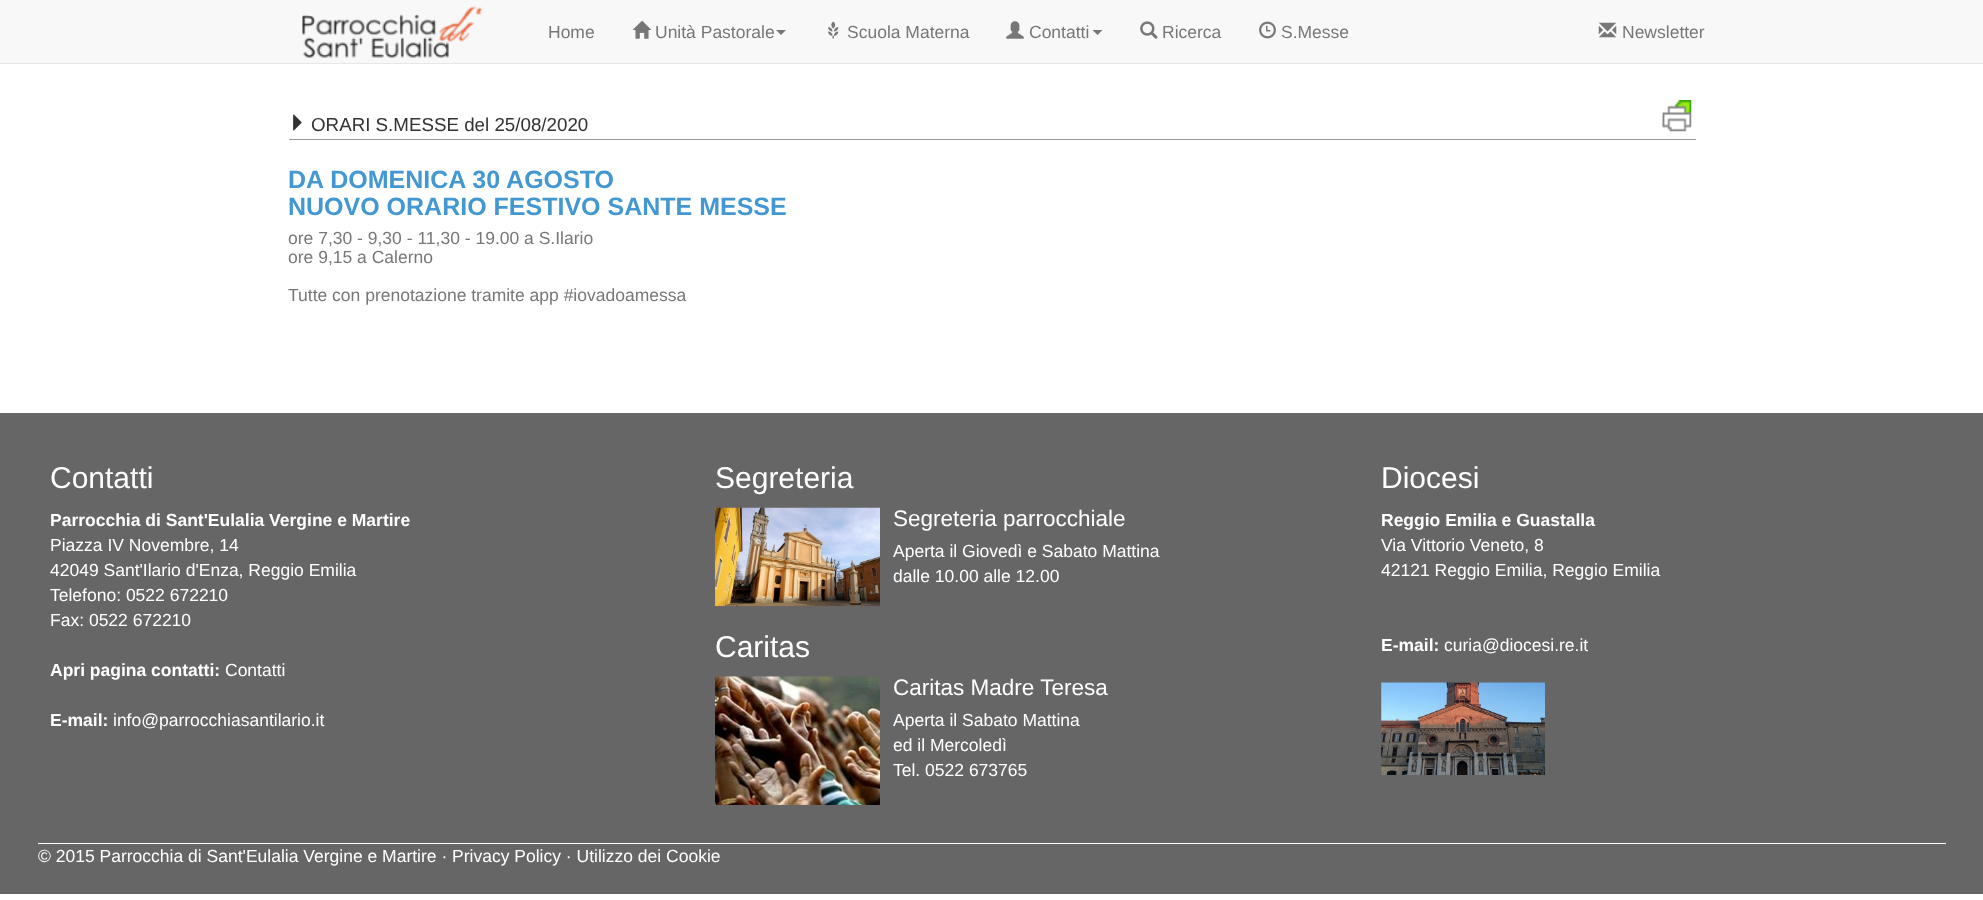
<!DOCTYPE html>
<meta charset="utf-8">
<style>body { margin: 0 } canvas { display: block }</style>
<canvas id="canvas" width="1983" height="900"></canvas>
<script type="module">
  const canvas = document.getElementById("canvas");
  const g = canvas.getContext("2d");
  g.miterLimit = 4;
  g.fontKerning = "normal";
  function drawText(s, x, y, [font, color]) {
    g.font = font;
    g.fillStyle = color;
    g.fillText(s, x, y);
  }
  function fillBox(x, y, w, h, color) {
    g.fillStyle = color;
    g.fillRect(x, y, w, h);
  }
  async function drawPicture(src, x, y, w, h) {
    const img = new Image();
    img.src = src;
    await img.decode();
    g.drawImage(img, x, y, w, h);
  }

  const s1 = ["17.5px Liberation Sans", "#777777"];
  const s2 = ["18.75px Liberation Sans", "#333333"];
  const s3 = ["bold 25px Liberation Sans", "#4398D2"];
  const s4 = ["30px Liberation Sans", "#FFFFFF"];
  const s5 = ["bold 17.5px Liberation Sans", "#FFFFFF"];
  const s6 = ["17.5px Liberation Sans", "#FFFFFF"];
  const s7 = ["22.5px Liberation Sans", "#FFFFFF"];

  fillBox(0, 0, 1983, 900, "#FFFFFF");
  fillBox(0, 0, 1983, 63, "#F8F8F8");
  fillBox(0, 63, 1983, 1, "#E7E7E7");
  await drawPicture("pic1.png", 302, 6, 180, 52);
  drawText("Home", 548, 38, s1);
  await drawPicture("pic2.png", 632, 20, 20, 19);
  drawText("Unità Pastorale", 655, 38, s1);
  g.beginPath();
  g.moveTo(776, 30);
  g.lineTo(786, 30);
  g.lineTo(781, 35);
  g.closePath();
  g.fill();
  await drawPicture("pic3.png", 828, 21, 11, 18);
  drawText("Scuola Materna", 847, 38, s1);
  await drawPicture("pic4.png", 1006, 21, 18, 18);
  drawText("Contatti", 1029, 38, s1);
  g.beginPath();
  g.moveTo(1092.5, 30);
  g.lineTo(1102.5, 30);
  g.lineTo(1097.5, 35);
  g.closePath();
  g.fill();
  await drawPicture("pic5.png", 1140, 21, 18, 18);
  drawText("Ricerca", 1162, 38, s1);
  await drawPicture("pic6.png", 1259, 21, 17, 18);
  drawText("S.Messe", 1281, 38, s1);
  await drawPicture("pic7.png", 1598, 22, 19, 16);
  drawText("Newsletter", 1622, 38, s1);
  fillBox(289, 139, 1407, 1, "#999999");
  await drawPicture("pic8.png", 293, 114, 9, 17);
  drawText("ORARI S.MESSE del 25/08/2020", 311, 131, s2);
  drawText("DA DOMENICA 30 AGOSTO", 288, 188, s3);
  drawText("NUOVO ORARIO FESTIVO SANTE MESSE", 288, 215, s3);
  drawText("ore 7,30 - 9,30 - 11,30 - 19.00 a S.Ilario", 288, 244, s1);
  drawText("ore 9,15 a Calerno", 288, 263, s1);
  drawText("Tutte con prenotazione tramite app #iovadoamessa", 288, 301, s1);
  await drawPicture("pic9.png", 1662, 100, 30, 32);
  fillBox(0, 413, 1983, 481, "#666666");
  drawText("Contatti", 50, 488, s4);
  drawText("Parrocchia di Sant'Eulalia Vergine e Martire", 50, 526, s5);
  drawText("Piazza IV Novembre, 14", 50, 551, s6);
  drawText("42049 Sant'Ilario d'Enza, Reggio Emilia", 50, 576, s6);
  drawText("Telefono: 0522 672210", 50, 601, s6);
  drawText("Fax: 0522 672210", 50, 626, s6);
  drawText("Apri pagina contatti:", 50, 676, s5);
  drawText("Contatti", 225, 676, s6);
  drawText("E-mail:", 50, 726, s5);
  drawText("info@parrocchiasantilario.it", 113, 726, s6);
  drawText("Segreteria", 715, 488, s4);
  await drawPicture("pic10.png", 715, 507, 165, 100);
  drawText("Segreteria parrocchiale", 893, 526, s7);
  drawText("Aperta il Giovedì e Sabato Mattina", 893, 557, s6);
  drawText("dalle 10.00 alle 12.00", 893, 582, s6);
  drawText("Caritas", 715, 657, s4);
  await drawPicture("pic11.png", 715, 676, 165, 129);
  drawText("Caritas Madre Teresa", 893, 695, s7);
  drawText("Aperta il Sabato Mattina", 893, 726, s6);
  drawText("ed il Mercoledì", 893, 751, s6);
  drawText("Tel. 0522 673765", 893, 776, s6);
  drawText("Diocesi", 1381, 488, s4);
  drawText("Reggio Emilia e Guastalla", 1381, 526, s5);
  drawText("Via Vittorio Veneto, 8", 1381, 551, s6);
  drawText("42121 Reggio Emilia, Reggio Emilia", 1381, 576, s6);
  drawText("E-mail:", 1381, 651, s5);
  drawText("curia@diocesi.re.it", 1444, 651, s6);
  await drawPicture("pic12.png", 1381, 682, 164, 93);
  fillBox(38, 843, 1908, 1, "#FFFFFF");
  drawText("© 2015 Parrocchia di Sant'Eulalia Vergine e Martire · Privacy Policy · Utilizzo dei Cookie", 38, 862, s6);
</script>
